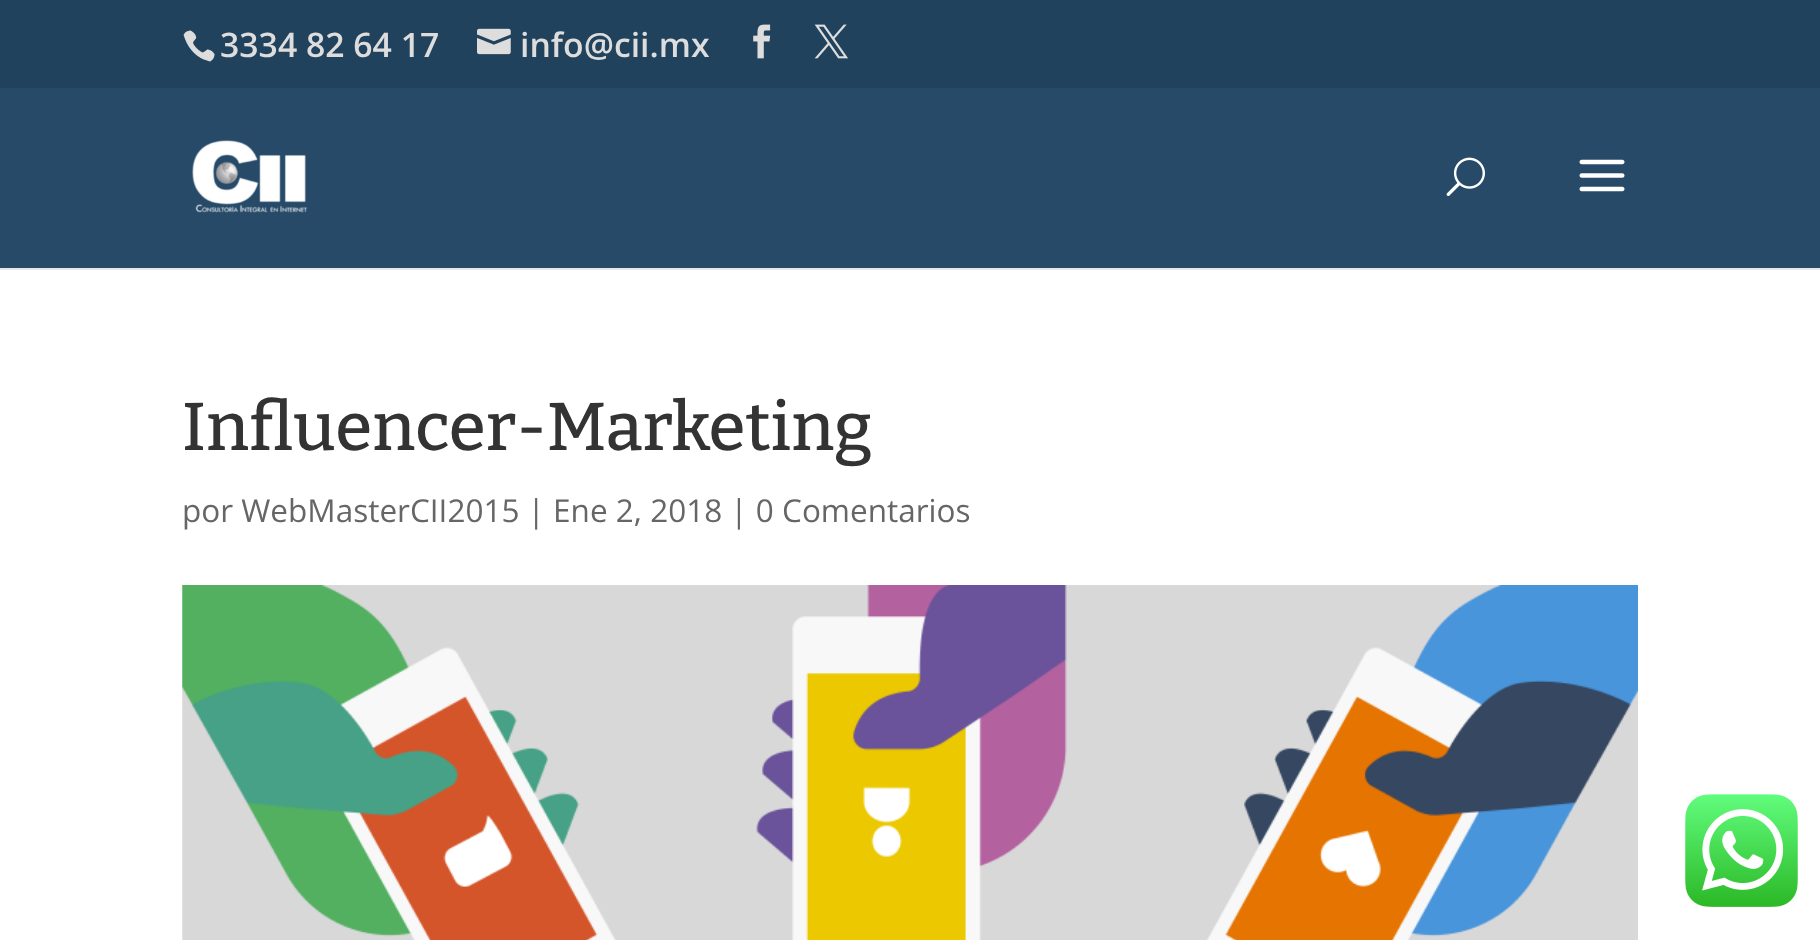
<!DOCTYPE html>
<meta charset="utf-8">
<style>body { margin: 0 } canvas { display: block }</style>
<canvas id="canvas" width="1820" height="940"></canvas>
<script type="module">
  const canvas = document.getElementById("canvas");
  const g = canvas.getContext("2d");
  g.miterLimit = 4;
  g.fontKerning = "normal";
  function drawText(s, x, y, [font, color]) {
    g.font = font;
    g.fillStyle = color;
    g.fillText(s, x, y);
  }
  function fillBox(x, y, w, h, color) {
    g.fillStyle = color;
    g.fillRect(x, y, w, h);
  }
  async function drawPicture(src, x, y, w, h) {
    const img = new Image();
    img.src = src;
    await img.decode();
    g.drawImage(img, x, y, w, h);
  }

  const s1 = ["600 33.75px Open Sans", "#DDDDDD"];
  const s2 = ["500 67.5px Bitter", "#333333"];
  const s3 = ["31.5px Open Sans", "#666666"];

  fillBox(0, 0, 1820, 940, "#FFFFFF");
  fillBox(0, 0, 1820, 88, "#21425C");
  await drawPicture("pic1.png", 183, 30, 32, 32);
  drawText("3334 82 64 17", 220, 57, s1);
  await drawPicture("pic2.png", 477, 28, 34, 27);
  drawText("info@cii.mx", 520, 57, s1);
  await drawPicture("pic3.png", 753, 24, 18, 35);
  await drawPicture("pic4.png", 814, 24, 34, 35);
  fillBox(0, 268, 1820, 2, "#E6E6E6");
  fillBox(0, 88, 1820, 180, "#264A68");
  await drawPicture("pic5.png", 192, 140, 116, 73);
  await drawPicture("pic6.png", 1446, 157, 39, 39);
  await drawPicture("pic7.png", 1579, 159, 46, 33);
  drawText("Influencer-Marketing", 182, 450, s2);
  drawText("por WebMasterCII2015 | Ene 2, 2018 | 0 Comentarios", 182, 522, s3);
  await drawPicture("pic8.png", 182, 585, 1456, 355);
  await drawPicture("pic9.png", 1685, 794, 113, 113);
</script>
